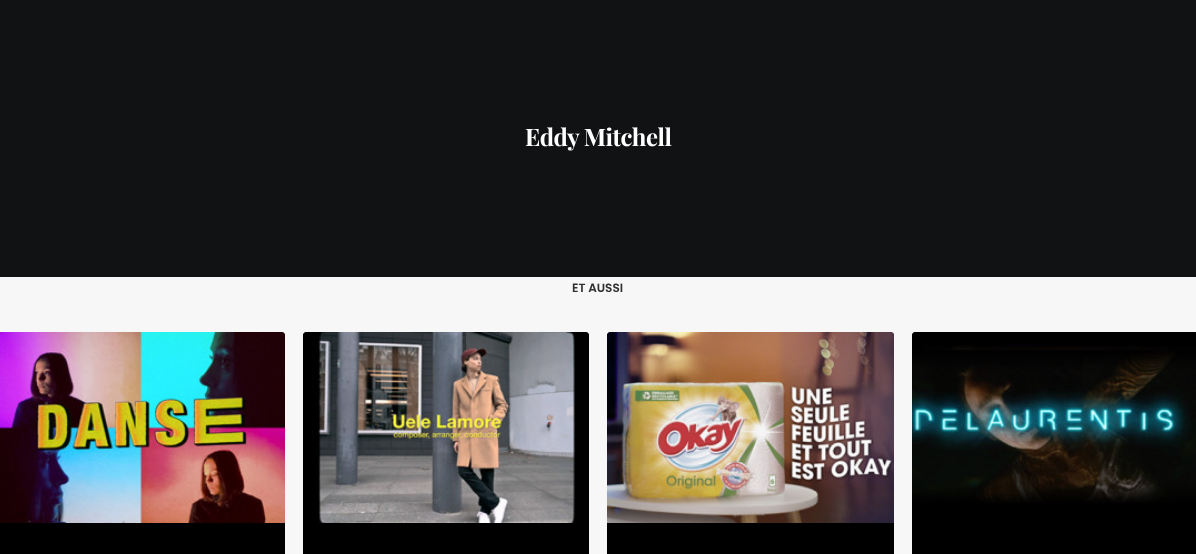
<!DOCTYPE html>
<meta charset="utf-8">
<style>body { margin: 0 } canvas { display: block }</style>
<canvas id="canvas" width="1196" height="554"></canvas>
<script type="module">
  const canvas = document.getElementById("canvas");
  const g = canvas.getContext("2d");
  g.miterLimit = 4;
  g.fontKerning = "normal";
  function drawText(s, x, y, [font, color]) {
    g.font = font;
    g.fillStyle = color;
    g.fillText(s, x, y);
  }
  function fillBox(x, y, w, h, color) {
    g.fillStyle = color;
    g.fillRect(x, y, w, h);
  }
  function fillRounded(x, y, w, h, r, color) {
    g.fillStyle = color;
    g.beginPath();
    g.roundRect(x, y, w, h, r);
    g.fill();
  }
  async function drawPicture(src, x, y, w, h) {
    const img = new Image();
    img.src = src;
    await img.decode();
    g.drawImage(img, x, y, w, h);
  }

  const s1 = ["bold 24px Playfair Display", "#FFFFFF"];
  const s2 = ["600 12px Poppins", "#303133"];

  fillBox(0, 0, 1196, 554, "#101213");
  g.letterSpacing = "-0.5px";
  drawText("Eddy Mitchell", 525, 146, s1);
  fillBox(0, 277, 1196, 277, "#F7F7F7");
  g.letterSpacing = "0px";
  drawText("ET AUSSI", 572, 292, s2);
  fillRounded(-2, 332, 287, 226, 4, "#000000");
  await drawPicture("pic1.png", 0, 332, 285, 191);
  fillRounded(303, 332, 286, 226, 4, "#000000");
  await drawPicture("pic2.png", 303, 332, 286, 191);
  fillRounded(607, 332, 287, 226, 4, "#000000");
  await drawPicture("pic3.png", 607, 332, 287, 191);
  fillRounded(912, 332, 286, 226, 4, "#000000");
  await drawPicture("pic4.png", 912, 332, 284, 171);
</script>
